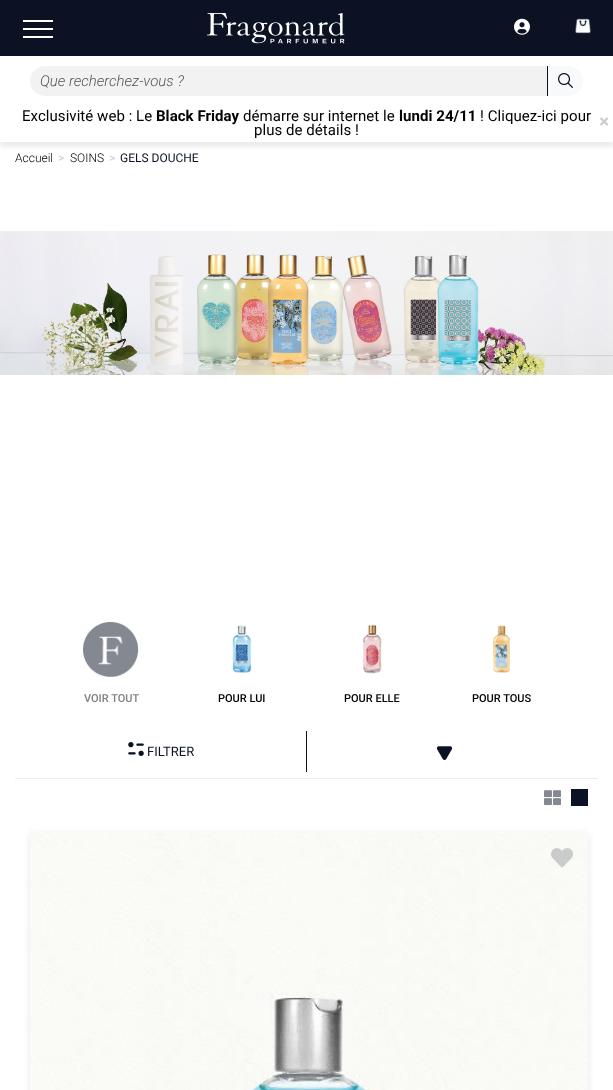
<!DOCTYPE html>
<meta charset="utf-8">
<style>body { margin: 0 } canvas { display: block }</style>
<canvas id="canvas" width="613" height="1090"></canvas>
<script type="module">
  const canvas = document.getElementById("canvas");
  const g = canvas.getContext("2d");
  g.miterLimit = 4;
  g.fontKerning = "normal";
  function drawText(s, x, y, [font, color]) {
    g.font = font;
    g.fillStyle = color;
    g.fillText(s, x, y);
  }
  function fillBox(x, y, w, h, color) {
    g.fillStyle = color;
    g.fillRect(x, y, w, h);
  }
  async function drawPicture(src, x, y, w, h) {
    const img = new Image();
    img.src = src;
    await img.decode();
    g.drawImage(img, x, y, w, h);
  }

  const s1 = ["italic 300 15px Roboto", "#555555"];
  const s2 = ["15px Roboto", "#000000"];
  const s3 = ["bold 15px Roboto", "#000000"];
  const s4 = ["300 12px Roboto", "#000000"];
  const s5 = ["12px Roboto", "#CCCCCC"];
  const s6 = ["12px Roboto", "#0B1223"];
  const s7 = ["500 11px Roboto", "#808080"];
  const s8 = ["500 11px Roboto", "#000000"];
  const s9 = ["13px Roboto", "#0B1223"];

  fillBox(0, 0, 613, 1090, "#FFFFFF");
  fillBox(0, 0, 613, 56, "#0B1223");
  fillBox(23, 20, 30, 2, "#FFFFFF");
  fillBox(23, 28, 30, 2, "#FFFFFF");
  fillBox(23, 36, 30, 2, "#FFFFFF");
  await drawPicture("pic1.png", 207, 13, 138, 31);
  await drawPicture("pic2.png", 514, 18, 16, 17);
  await drawPicture("pic3.png", 575, 18, 16, 16);
  g.fillStyle = "#F2F2F2";
  g.beginPath();
  g.roundRect(30, 66, 517, 30, [15, 0, 0, 15]);
  g.fill();
  drawText("Que recherchez-vous ?", 40, 86, s1);
  g.fillStyle = "#F8F9FA";
  g.beginPath();
  g.roundRect(547, 66, 36, 30, [0, 15, 15, 0]);
  g.fill();
  fillBox(547, 66, 1, 30, "#0B1223");
  await drawPicture("pic4.png", 558, 73, 15, 15);
  g.save();
  g.beginPath();
  g.rect(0, 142, 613, 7);
  g.clip();
  g.fillStyle = "rgba(57, 63, 72, 0.1)";
  g.filter = "blur(2.5px)";
  g.beginPath();
  g.rect(0, 111, 613, 36);
  g.fill();
  g.filter = "none";
  g.restore();
  g.letterSpacing = "0.05px";
  drawText("Exclusivité web : Le", 22, 121, s2);
  drawText("Black Friday", 156, 121, s3);
  drawText("démarre sur internet le", 243, 121, s2);
  drawText("lundi 24/11", 399, 121, s3);
  drawText("! Cliquez-ici pour", 480, 121, s2);
  drawText("plus de détails !", 254, 135, s2);
  await drawPicture("pic5.png", 600, 117, 9, 9);
  g.letterSpacing = "0px";
  drawText("Accueil", 15, 162, s4);
  drawText(">", 58, 162, s5);
  drawText("SOINS", 70, 162, s4);
  drawText(">", 109, 162, s5);
  drawText("GELS DOUCHE", 120, 162, s6);
  await drawPicture("pic6.png", 0, 231, 613, 144);
  await drawPicture("pic7.png", 83, 622, 56, 55);
  drawText("VOIR TOUT", 84, 702, s7);
  await drawPicture("pic8.png", 232, 625, 20, 48);
  drawText("POUR LUI", 218, 702, s8);
  await drawPicture("pic9.png", 363, 624, 19, 50);
  drawText("POUR ELLE", 344, 702, s8);
  await drawPicture("pic10.png", 493, 625, 18, 48);
  drawText("POUR TOUS", 472, 702, s8);
  fillBox(15, 778, 583, 1, "#EEEEEE");
  fillBox(306, 731, 1, 42, "#0B1223");
  fillBox(306, 772, 1, 1, "#FFFFFF");
  await drawPicture("pic11.png", 128, 742, 16, 14);
  drawText("FILTRER", 147, 756, s9);
  await drawPicture("pic12.png", 436, 746, 17, 14);
  await drawPicture("pic13.png", 544, 790, 17, 16);
  fillBox(571, 789, 17, 17, "#0B1223");
  g.fillStyle = "rgba(0, 0, 0, 0.05)";
  g.filter = "blur(3px)";
  g.beginPath();
  g.rect(30, 837, 558, 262);
  g.fill();
  g.filter = "none";
  g.filter = "blur(3px)";
  g.beginPath();
  g.rect(30, 832, 558, 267);
  g.fill();
  g.filter = "none";
  await drawPicture("pic14.png", 30, 832, 558, 258);
  await drawPicture("pic15.png", 551, 848, 22, 20);
</script>
